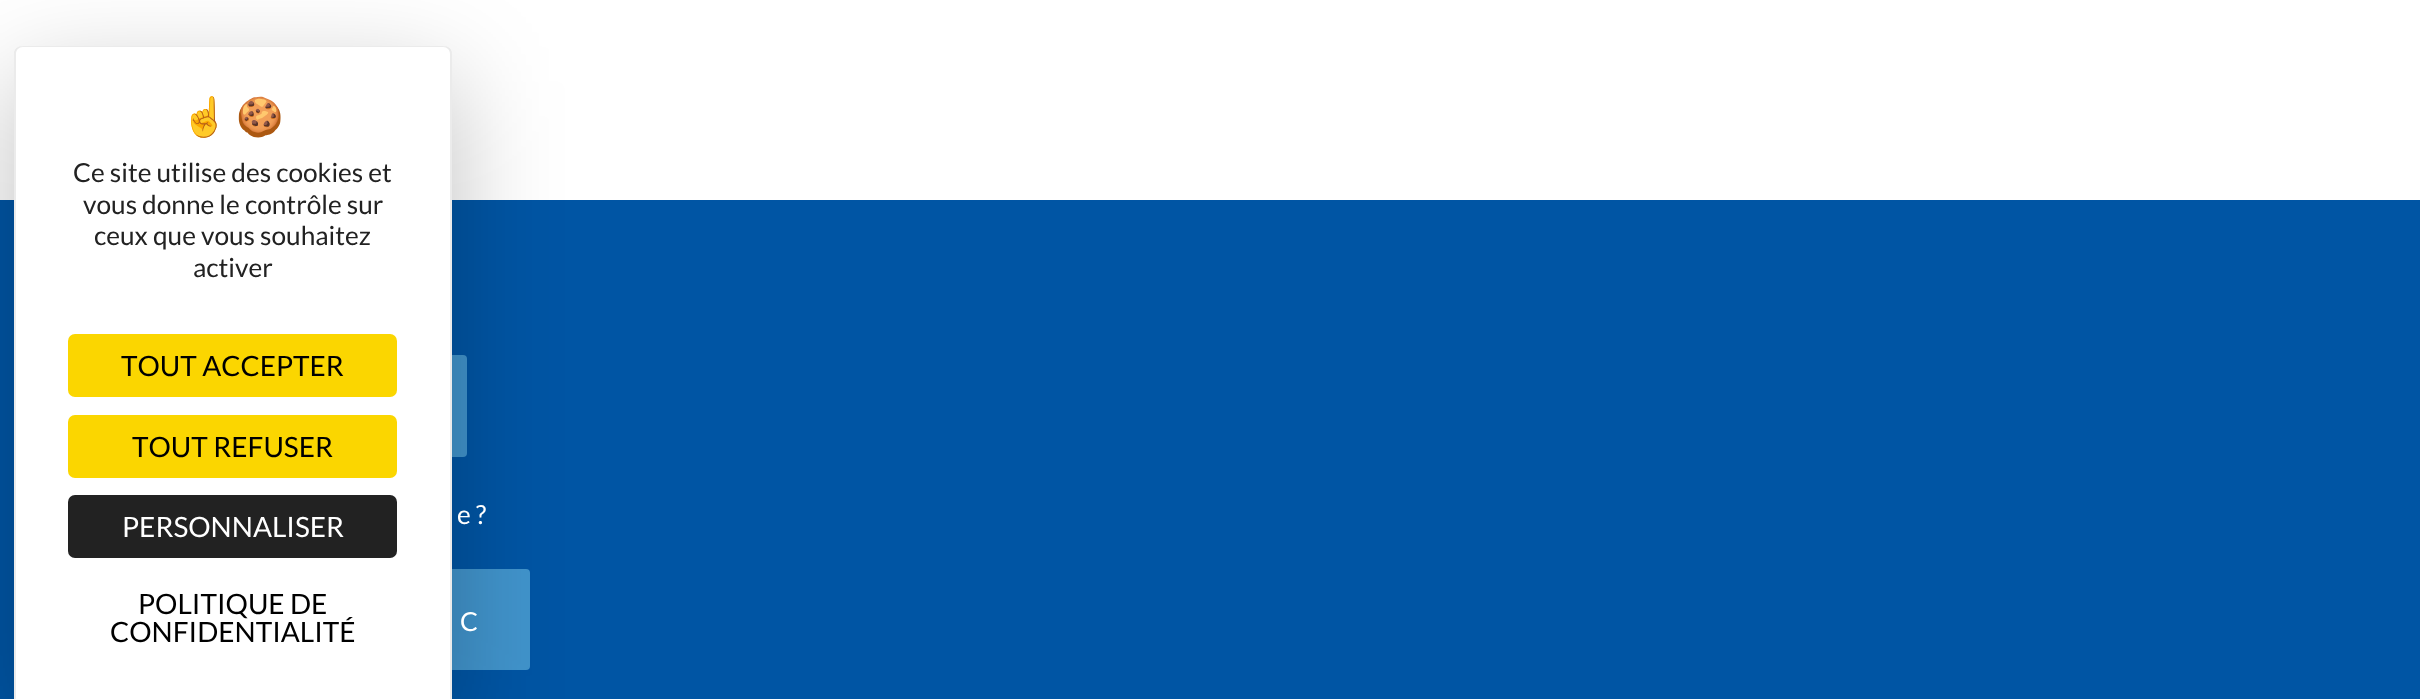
<!DOCTYPE html>
<meta charset="utf-8">
<style>body { margin: 0 } canvas { display: block }</style>
<canvas id="canvas" width="2420" height="699"></canvas>
<script type="module">
  const canvas = document.getElementById("canvas");
  const g = canvas.getContext("2d");
  g.miterLimit = 4;
  g.fontKerning = "none";
  function drawText(s, x, y, [font, color]) {
    g.font = font;
    g.fillStyle = color;
    g.fillText(s, x, y);
  }
  function fillBox(x, y, w, h, color) {
    g.fillStyle = color;
    g.fillRect(x, y, w, h);
  }
  function fillRounded(x, y, w, h, r, color) {
    g.fillStyle = color;
    g.beginPath();
    g.roundRect(x, y, w, h, r);
    g.fill();
  }

  const s1 = ["38px Noto Color Emoji", "#222222"];
  const s2 = ["26.25px Lato", "#222222"];
  const s3 = ["28px Lato", "#000000"];
  const s4 = ["28px Lato", "#FFFFFF"];
  const s5 = ["26.25px Lato", "#FFFFFF"];

  fillBox(0, 0, 2420, 699, "#FFFFFF");
  fillBox(0, 200, 2420, 499, "#0055A4");
  fillRounded(126, 355, 341, 102, 4, "#4194CC");
  fillRounded(126, 569, 404, 101, 4, "#4194CC");
  g.fillStyle = "rgba(0, 0, 0, 0.25)";
  g.filter = "blur(52.5px)";
  g.beginPath();
  g.roundRect(14, 81, 438, 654, 9);
  g.fill();
  g.filter = "none";
  g.fillStyle = "#FFFFFF";
  g.beginPath();
  g.moveTo(23, 46);
  g.lineTo(443, 46);
  g.bezierCurveTo(448, 46, 452, 50, 452, 55);
  g.lineTo(452, 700);
  g.lineTo(14, 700);
  g.lineTo(14, 55);
  g.bezierCurveTo(14, 50, 18, 46, 23, 46);
  g.closePath();
  g.fill();
  g.fillStyle = "rgba(0, 0, 0, 0.08)";
  g.beginPath();
  g.moveTo(23, 46);
  g.lineTo(443, 46);
  g.bezierCurveTo(448, 46, 452, 49, 452, 54);
  g.lineTo(452, 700);
  g.lineTo(14, 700);
  g.lineTo(14, 54);
  g.bezierCurveTo(14, 49, 18, 46, 23, 46);
  g.closePath();
  g.moveTo(23, 47);
  g.lineTo(443, 47);
  g.bezierCurveTo(447, 47, 450, 50, 450, 54);
  g.lineTo(450, 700);
  g.lineTo(16, 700);
  g.lineTo(16, 54);
  g.bezierCurveTo(16, 50, 19, 47, 23, 47);
  g.closePath();
  g.fill("evenodd");
  drawText("☝️", 181, 130, s1);
  drawText("🍪", 236, 130, s1);
  drawText("Ce site utilise des cookies et", 73, 182, s2);
  drawText("vous donne le contrôle sur", 83, 214, s2);
  drawText("ceux que vous souhaitez", 94, 245, s2);
  drawText("activer", 193, 277, s2);
  fillRounded(68, 334, 329, 63, 7, "#FBD600");
  drawText("TOUT ACCEPTER", 121, 376, s3);
  fillRounded(68, 415, 329, 63, 7, "#FBD600");
  drawText("TOUT REFUSER", 132, 457, s3);
  fillRounded(68, 495, 329, 63, 7, "#222222");
  drawText("PERSONNALISER", 122, 537, s4);
  drawText("POLITIQUE DE", 138, 614, s3);
  drawText("CONFIDENTIALITÉ", 110, 642, s3);
  drawText("e ?", 457, 524, s5);
  drawText("C", 460, 631, s5);
</script>
